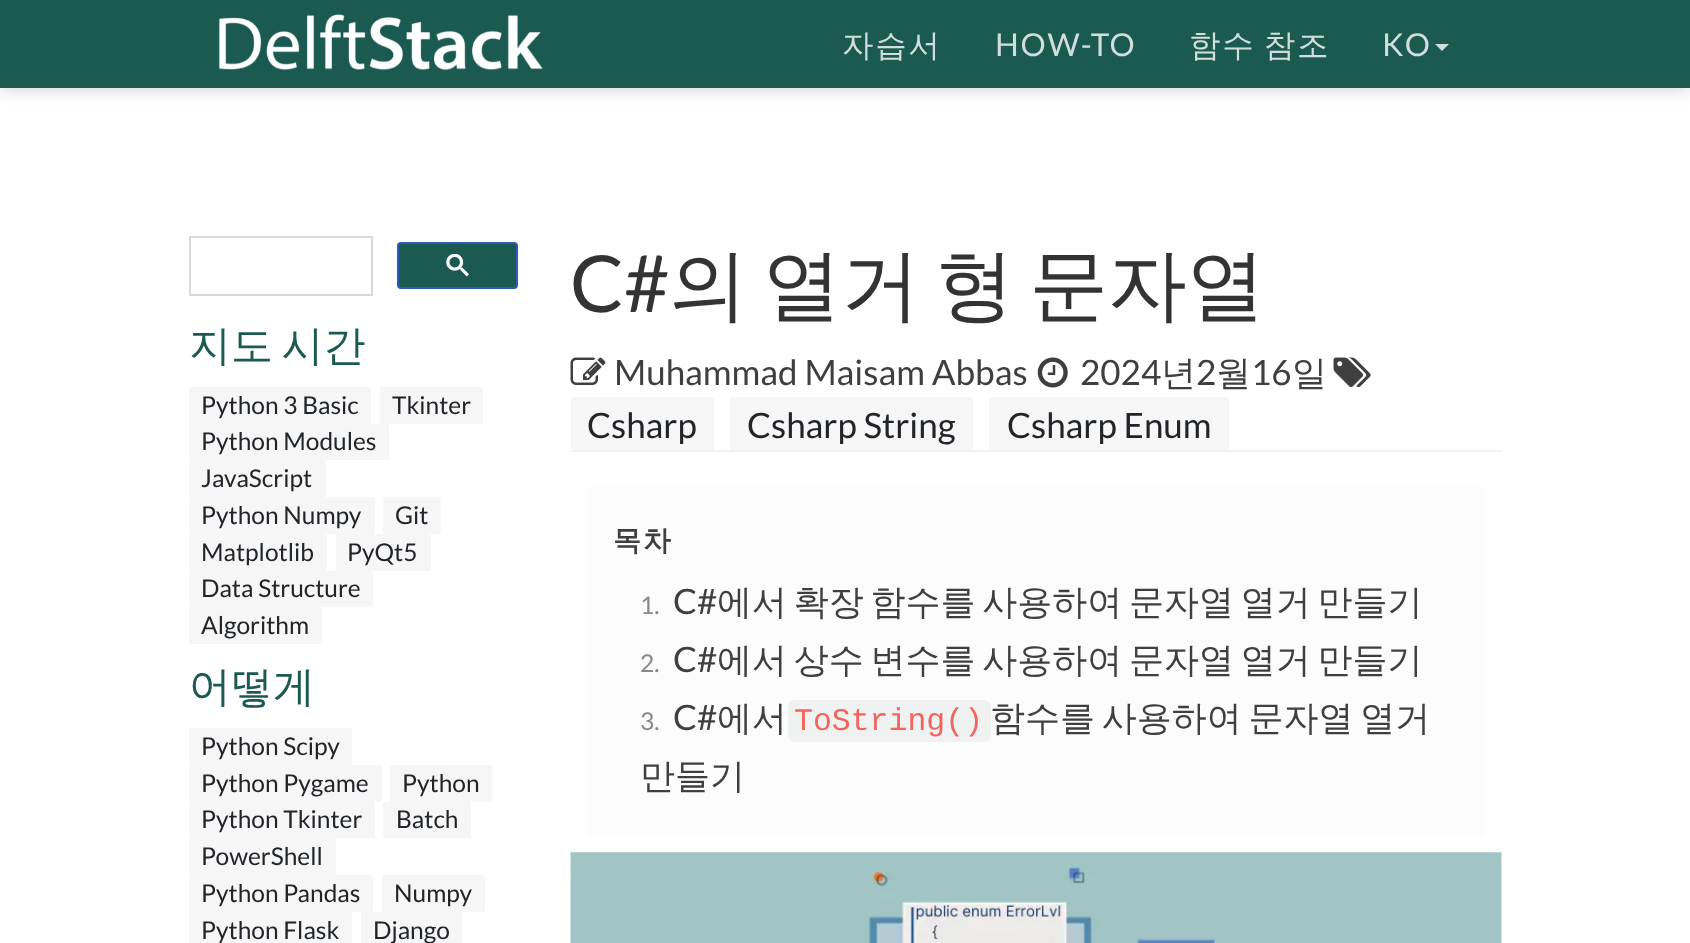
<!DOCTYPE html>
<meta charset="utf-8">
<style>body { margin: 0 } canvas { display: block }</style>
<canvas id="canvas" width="1690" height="943"></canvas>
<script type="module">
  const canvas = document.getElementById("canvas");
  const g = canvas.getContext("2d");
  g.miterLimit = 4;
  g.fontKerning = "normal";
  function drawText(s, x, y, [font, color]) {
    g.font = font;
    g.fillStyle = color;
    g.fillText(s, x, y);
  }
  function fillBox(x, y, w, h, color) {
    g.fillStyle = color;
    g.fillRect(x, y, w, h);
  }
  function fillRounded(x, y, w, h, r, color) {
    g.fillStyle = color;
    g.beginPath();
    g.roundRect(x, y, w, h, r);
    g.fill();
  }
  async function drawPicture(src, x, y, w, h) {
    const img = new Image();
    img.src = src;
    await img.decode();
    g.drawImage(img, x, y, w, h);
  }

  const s1 = ["500 31.5px WenQuanYi Zen Hei", "#D1DEDC"];
  const s2 = ["31.5px Lato", "#D1DEDC"];
  const s3 = ["500 42px WenQuanYi Zen Hei", "#1B5A50"];
  const s4 = ["24.5px Lato", "#212529"];
  const s5 = ["78.75px Lato", "#333333"];
  const s6 = ["500 78.75px WenQuanYi Zen Hei", "#333333"];
  const s7 = ["35px Lato", "#3F3F3F"];
  const s8 = ["500 35px WenQuanYi Zen Hei", "#3F3F3F"];
  const s9 = ["35px Lato", "#212529"];
  const s10 = ["bold 28px WenQuanYi Zen Hei", "#3F3F3F"];
  const s11 = ["24.5px Lato", "#888888"];
  const s12 = ["31.5px Liberation Mono", "#F4645F"];

  fillBox(0, 0, 1690, 943, "#FFFFFF");
  g.fillStyle = "rgba(0, 0, 0, 0.2)";
  g.filter = "blur(9px)";
  g.beginPath();
  g.rect(0, 0, 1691, 88);
  g.fill();
  g.filter = "none";
  fillBox(0, 0, 1690, 88, "#1B5A50");
  await drawPicture("pic1.png", 218, 14, 325, 57);
  g.letterSpacing = "1.75px";
  drawText("자습서", 842, 56, s1);
  drawText("HOW-TO", 995, 56, s2);
  g.wordSpacing = "-3px";
  drawText("함수 참조", 1189, 56, s1);
  g.wordSpacing = "0px";
  drawText("KO", 1382, 56, s2);
  g.beginPath();
  g.moveTo(1435, 44);
  g.lineTo(1449, 44);
  g.lineTo(1442, 51);
  g.closePath();
  g.fill();
  g.strokeStyle = "#D9D9D9";
  g.lineWidth = 2;
  g.strokeRect(190, 237, 182, 58);
  g.fillStyle = "#1B5A50";
  g.beginPath();
  g.roundRect(398, 243, 119, 45, 3);
  g.fill();
  g.strokeStyle = "#2F5BB7";
  g.stroke();
  await drawPicture("pic2.png", 446, 254, 23, 23);
  g.letterSpacing = "0px";
  g.wordSpacing = "-4px";
  drawText("지도 시간", 189, 360, s3);
  fillRounded(189, 387, 182, 37, 2, "#F6F6F6");
  g.wordSpacing = "0px";
  drawText("Python 3 Basic", 201, 414, s4);
  fillRounded(380, 387, 103, 37, 2, "#F6F6F6");
  drawText("Tkinter", 392, 414, s4);
  fillRounded(189, 424, 200, 36, 2, "#F6F6F6");
  drawText("Python Modules", 201, 450, s4);
  fillRounded(189, 460, 137, 37, 2, "#F6F6F6");
  drawText("JavaScript", 201, 487, s4);
  fillRounded(189, 497, 186, 37, 2, "#F6F6F6");
  drawText("Python Numpy", 201, 524, s4);
  fillRounded(383, 497, 58, 37, 2, "#F6F6F6");
  drawText("Git", 395, 524, s4);
  fillRounded(189, 534, 138, 37, 2, "#F6F6F6");
  drawText("Matplotlib", 201, 561, s4);
  fillRounded(336, 534, 95, 37, 2, "#F6F6F6");
  drawText("PyQt5", 347, 561, s4);
  fillRounded(189, 571, 184, 36, 2, "#F6F6F6");
  drawText("Data Structure", 201, 597, s4);
  fillRounded(189, 607, 133, 37, 2, "#F6F6F6");
  drawText("Algorithm", 201, 634, s4);
  drawText("어떻게", 189, 701, s3);
  fillRounded(189, 728, 163, 37, 2, "#F6F6F6");
  drawText("Python Scipy", 201, 755, s4);
  fillRounded(189, 765, 193, 37, 2, "#F6F6F6");
  drawText("Python Pygame", 201, 792, s4);
  fillRounded(390, 765, 102, 37, 2, "#F6F6F6");
  drawText("Python", 402, 792, s4);
  fillRounded(189, 802, 186, 36, 2, "#F6F6F6");
  drawText("Python Tkinter", 201, 828, s4);
  fillRounded(383, 802, 88, 36, 2, "#F6F6F6");
  drawText("Batch", 396, 828, s4);
  fillRounded(189, 838, 147, 37, 2, "#F6F6F6");
  drawText("PowerShell", 201, 865, s4);
  fillRounded(189, 875, 184, 37, 2, "#F6F6F6");
  drawText("Python Pandas", 201, 902, s4);
  fillRounded(382, 875, 103, 37, 2, "#F6F6F6");
  drawText("Numpy", 394, 902, s4);
  fillRounded(189, 912, 163, 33, 2, "#F6F6F6");
  drawText("Python Flask", 201, 939, s4);
  fillRounded(361, 912, 101, 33, 2, "#F6F6F6");
  drawText("Django", 373, 939, s4);
  fillBox(571, 450, 931, 2, "#F1F1F1");
  drawText("C#", 570, 312, s5);
  g.wordSpacing = "-8.5px";
  drawText("의 열거 형 문자열", 669, 312, s6);
  await drawPicture("pic3.png", 570, 357, 36, 28);
  g.wordSpacing = "0px";
  drawText("Muhammad Maisam Abbas", 614, 385, s7);
  await drawPicture("pic4.png", 1037, 357, 31, 31);
  drawText("2024", 1080, 385, s7);
  drawText("년", 1161, 385, s8);
  drawText("2", 1196, 385, s7);
  drawText("월", 1216, 385, s8);
  drawText("16", 1251, 385, s7);
  drawText("일", 1292, 385, s8);
  await drawPicture("pic5.png", 1333, 357, 38, 31);
  fillRounded(571, 397, 143, 53, 2, "#F6F6F6");
  drawText("Csharp", 587, 438, s9);
  fillRounded(730, 397, 243, 53, 2, "#F6F6F6");
  drawText("Csharp String", 747, 438, s9);
  fillRounded(989, 397, 240, 53, 2, "#F6F6F6");
  drawText("Csharp Enum", 1007, 438, s9);
  fillBox(588, 487, 896, 348, "#FCFCFC");
  g.letterSpacing = "1.75px";
  drawText("목차", 613, 550, s10);
  g.letterSpacing = "0px";
  drawText("1.", 640, 614, s11);
  drawText("C#", 673, 614, s7);
  g.wordSpacing = "-3.75px";
  drawText("에서 확장 함수를 사용하여 문자열 열거 만들기", 717, 614, s8);
  g.wordSpacing = "0px";
  drawText("2.", 640, 672, s11);
  drawText("C#", 673, 672, s7);
  g.wordSpacing = "-3.75px";
  drawText("에서 상수 변수를 사용하여 문자열 열거 만들기", 717, 672, s8);
  g.wordSpacing = "0px";
  drawText("3.", 640, 730, s11);
  drawText("C#", 673, 730, s7);
  drawText("에서", 717, 730, s8);
  fillRounded(788, 700, 203, 42, 7, "#F0F2F1");
  drawText("ToString()", 794, 730, s12);
  g.wordSpacing = "-3.75px";
  drawText("함수를 사용하여 문자열 열거", 990, 730, s8);
  g.wordSpacing = "0px";
  drawText("만들기", 640, 788, s8);
  await drawPicture("pic6.png", 570, 852, 932, 91);
</script>
